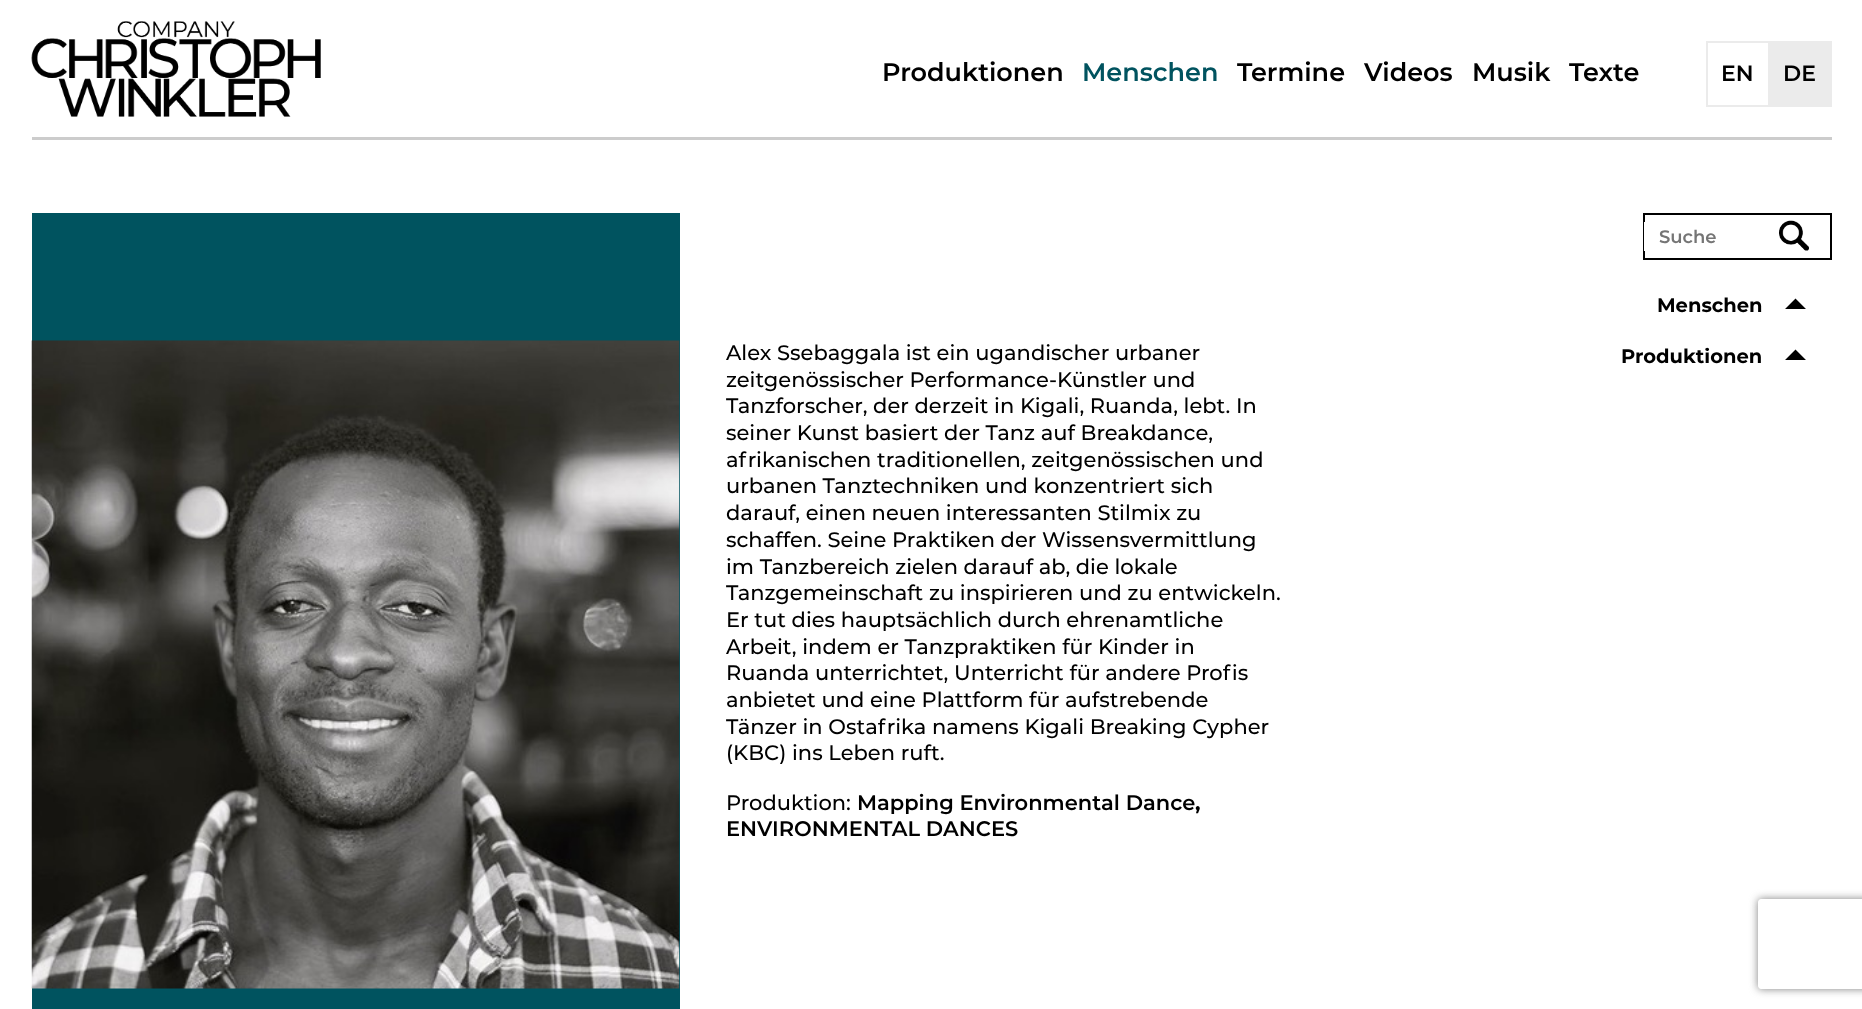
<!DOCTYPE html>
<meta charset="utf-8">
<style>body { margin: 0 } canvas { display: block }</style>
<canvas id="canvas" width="1862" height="1009"></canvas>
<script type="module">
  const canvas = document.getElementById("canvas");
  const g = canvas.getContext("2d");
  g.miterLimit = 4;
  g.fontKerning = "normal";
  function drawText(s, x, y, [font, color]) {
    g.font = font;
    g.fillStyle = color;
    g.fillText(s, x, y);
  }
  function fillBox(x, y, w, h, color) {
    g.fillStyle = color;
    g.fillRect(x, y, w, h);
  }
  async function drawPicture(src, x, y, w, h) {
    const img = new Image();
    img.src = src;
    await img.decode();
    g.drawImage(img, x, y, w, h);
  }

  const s1 = ["600 25.5px Montserrat", "#000000"];
  const s2 = ["600 25.5px Montserrat", "#00535F"];
  const s3 = ["600 22px Montserrat", "#000000"];
  const s4 = ["600 18px Montserrat", "#757575"];
  const s5 = ["bold 19.5px Montserrat", "#000000"];
  const s6 = ["500 21px Montserrat", "#000000"];
  const s7 = ["600 21px Montserrat", "#000000"];
  const s8 = ["bold 21px Montserrat", "#000000"];

  fillBox(0, 0, 1862, 1009, "#FFFFFF");
  fillBox(32, 137, 1800, 3, "#CCCCCC");
  await drawPicture("pic1.png", 31, 21, 290, 96);
  drawText("Produktionen", 882, 81, s1);
  drawText("Menschen", 1082, 81, s2);
  drawText("Termine", 1237, 81, s1);
  drawText("Videos", 1364, 81, s1);
  drawText("Musik", 1472, 81, s1);
  drawText("Texte", 1569, 81, s1);
  g.strokeStyle = "#EBEBEB";
  g.lineWidth = 2;
  g.strokeRect(1707, 42, 62, 64);
  drawText("EN", 1721, 81, s3);
  fillBox(1770, 41, 62, 66, "#EBEBEB");
  drawText("DE", 1783, 81, s3);
  g.strokeStyle = "#000000";
  g.strokeRect(1644, 214, 187, 45);
  fillBox(1644, 222, 1, 29, "#FFFFFF");
  drawText("Suche", 1659, 243, s4);
  await drawPicture("pic2.png", 1779, 220, 30, 31);
  drawText("Menschen", 1657, 312, s5);
  g.beginPath();
  g.moveTo(1806, 309);
  g.lineTo(1785, 309);
  g.lineTo(1795.5, 298.5);
  g.closePath();
  g.moveTo(1806, 360);
  g.lineTo(1785, 360);
  g.lineTo(1795.5, 349.5);
  g.closePath();
  g.fill();
  drawText("Produktionen", 1621, 363, s5);
  fillBox(32, 213, 648, 796, "#00535F");
  await drawPicture("pic3.png", 31, 340, 649, 649);
  drawText("Alex Ssebaggala ist ein ugandischer urbaner", 726, 360, s6);
  drawText("zeitgenössischer Performance-Künstler und", 726, 387, s6);
  drawText("Tanzforscher, der derzeit in Kigali, Ruanda, lebt. In", 726, 413, s6);
  drawText("seiner Kunst basiert der Tanz auf Breakdance,", 726, 440, s6);
  drawText("afrikanischen traditionellen, zeitgenössischen und", 726, 467, s6);
  drawText("urbanen Tanztechniken und konzentriert sich", 726, 493, s6);
  drawText("darauf, einen neuen interessanten Stilmix zu", 726, 520, s6);
  drawText("schaffen. Seine Praktiken der Wissensvermittlung", 726, 547, s6);
  drawText("im Tanzbereich zielen darauf ab, die lokale", 726, 574, s6);
  drawText("Tanzgemeinschaft zu inspirieren und zu entwickeln.", 726, 600, s6);
  drawText("Er tut dies hauptsächlich durch ehrenamtliche", 726, 627, s6);
  drawText("Arbeit, indem er Tanzpraktiken für Kinder in", 726, 654, s6);
  drawText("Ruanda unterrichtet, Unterricht für andere Profis", 726, 680, s6);
  drawText("anbietet und eine Plattform für aufstrebende", 726, 707, s6);
  drawText("Tänzer in Ostafrika namens Kigali Breaking Cypher", 726, 734, s6);
  drawText("(KBC) ins Leben ruft.", 726, 760, s6);
  drawText("Produktion:", 726, 810, s6);
  drawText("Mapping Environmental Dance", 857, 810, s7);
  drawText(",", 1195, 810, s8);
  drawText("ENVIRONMENTAL DANCES", 726, 836, s7);
  g.save();
  g.beginPath();
  g.moveTo(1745, 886);
  g.lineTo(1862, 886);
  g.lineTo(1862, 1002);
  g.lineTo(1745, 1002);
  g.closePath();
  g.moveTo(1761, 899);
  g.lineTo(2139, 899);
  g.bezierCurveTo(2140.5, 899, 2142, 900.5, 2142, 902);
  g.lineTo(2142, 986);
  g.bezierCurveTo(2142, 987.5, 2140.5, 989, 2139, 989);
  g.lineTo(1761, 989);
  g.bezierCurveTo(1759.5, 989, 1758, 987.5, 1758, 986);
  g.lineTo(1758, 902);
  g.bezierCurveTo(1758, 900.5, 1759.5, 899, 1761, 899);
  g.closePath();
  g.clip("evenodd");
  g.fillStyle = "#808080";
  g.filter = "blur(4px)";
  g.beginPath();
  g.roundRect(1758, 899, 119, 90, 3);
  g.fill();
  g.filter = "none";
  g.restore();
</script>
